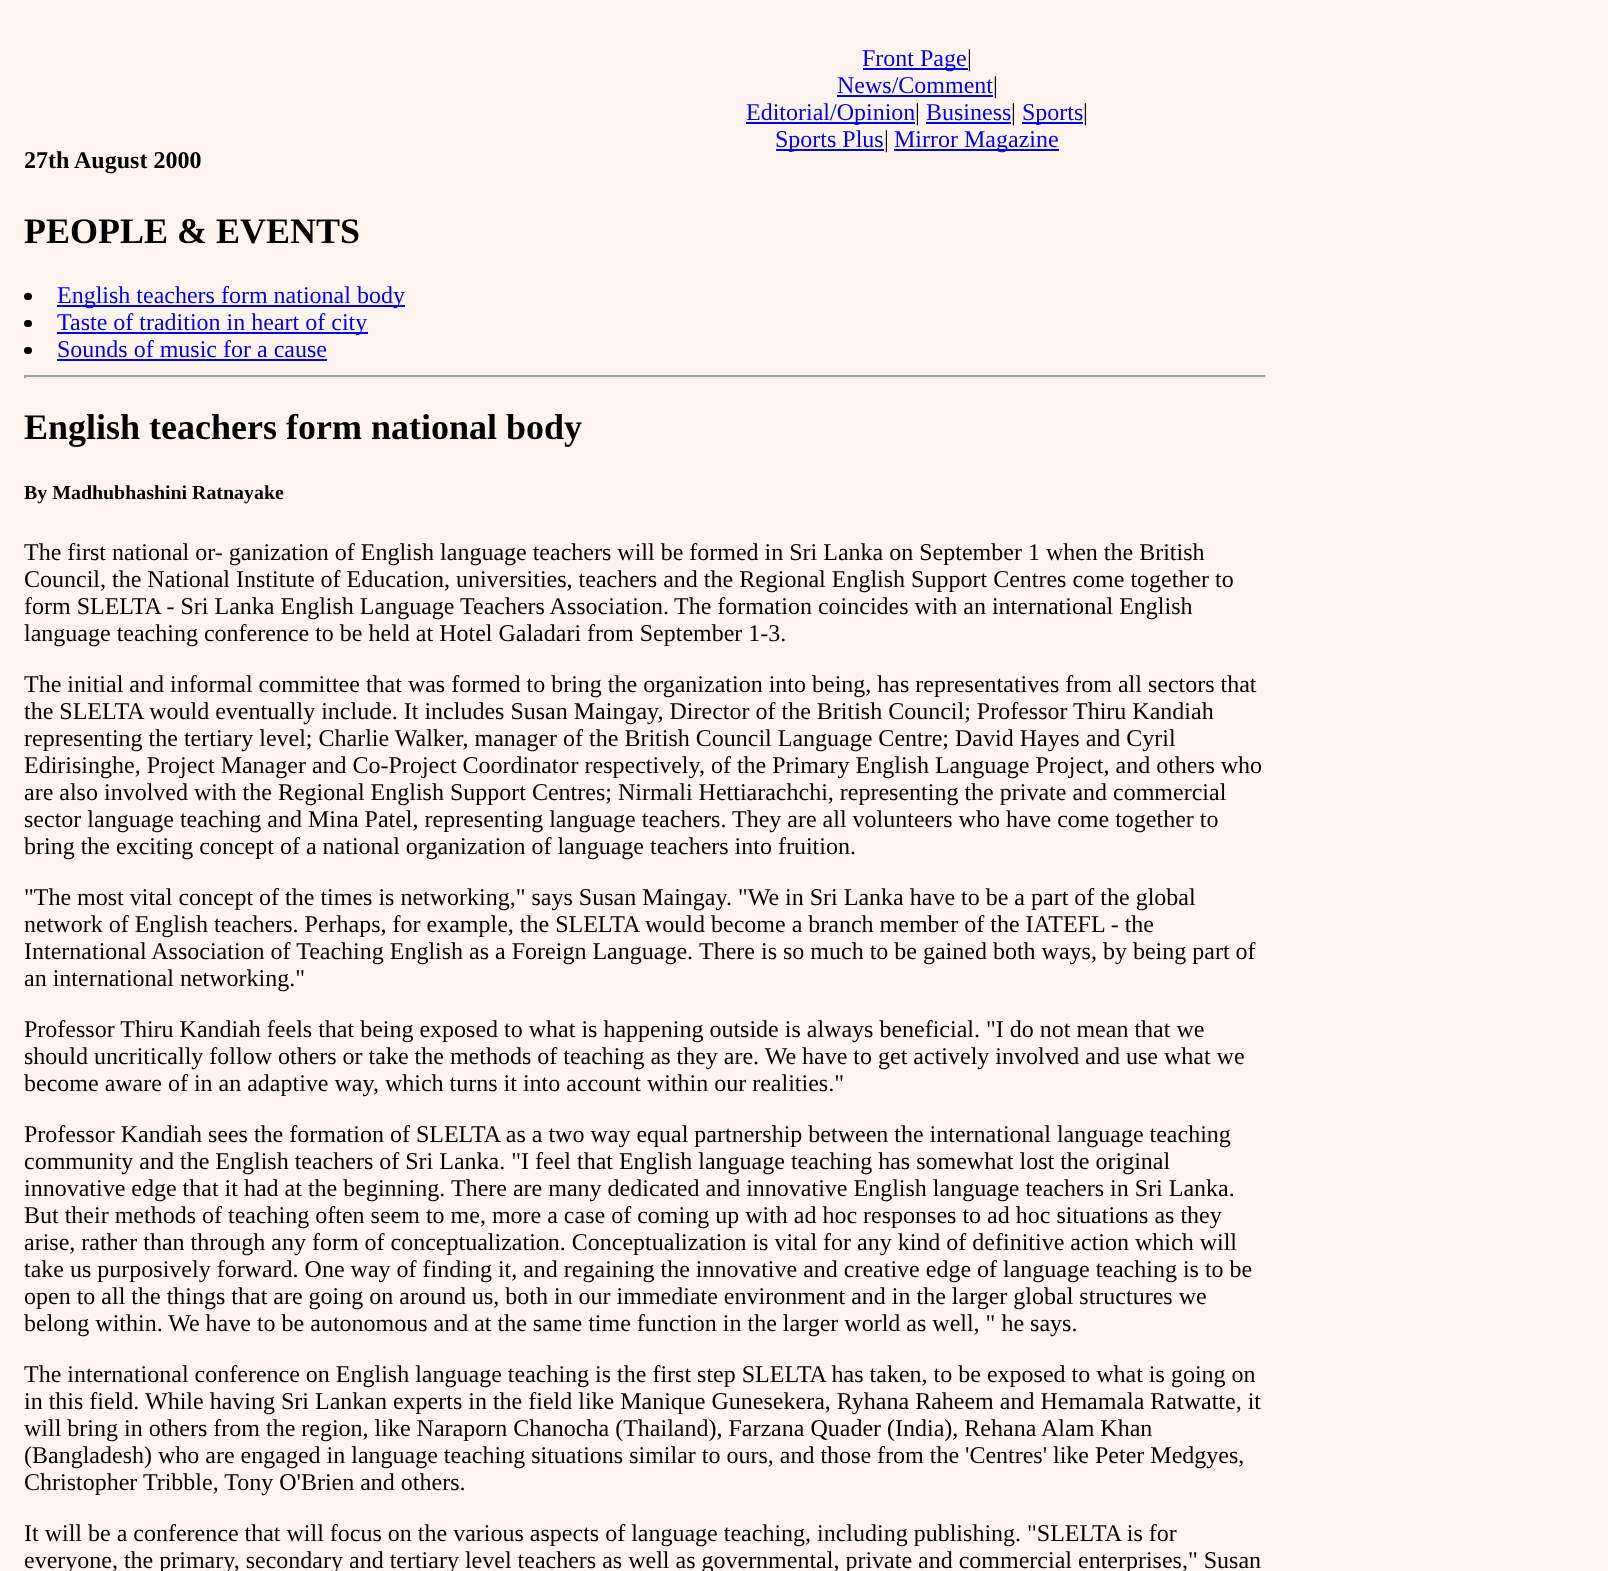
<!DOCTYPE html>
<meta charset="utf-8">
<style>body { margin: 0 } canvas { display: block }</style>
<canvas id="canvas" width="1608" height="1571"></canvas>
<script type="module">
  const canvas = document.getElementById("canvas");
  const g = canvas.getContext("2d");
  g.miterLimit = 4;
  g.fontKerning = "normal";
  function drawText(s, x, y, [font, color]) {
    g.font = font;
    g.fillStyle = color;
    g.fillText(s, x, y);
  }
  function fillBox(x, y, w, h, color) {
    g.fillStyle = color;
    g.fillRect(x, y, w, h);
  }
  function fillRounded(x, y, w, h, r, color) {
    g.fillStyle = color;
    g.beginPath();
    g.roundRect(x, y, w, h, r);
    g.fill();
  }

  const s1 = ["24px Liberation Serif", "#0000EE"];
  const s2 = ["24px Liberation Serif", "#000000"];
  const s3 = ["bold 24px Liberation Serif", "#000000"];
  const s4 = ["bold 36px Liberation Serif", "#000000"];
  const s5 = ["bold 19.9px Liberation Serif", "#000000"];

  fillBox(0, 0, 1608, 1571, "#FEF4EF");
  fillBox(863, 68, 105, 2, "#0000EE");
  drawText("Front Page", 862, 66, s1);
  drawText("|", 967, 66, s2);
  drawText("News/Comment", 837, 93, s1);
  fillBox(837, 95, 156, 2, "#0000EE");
  drawText("|", 993, 93, s2);
  fillBox(746, 122, 169, 2, "#0000EE");
  drawText("Editorial/Opinion", 746, 120, s1);
  drawText("|", 915, 120, s2);
  drawText("Business", 926, 120, s1);
  fillBox(926, 122, 85, 2, "#0000EE");
  drawText("|", 1011, 120, s2);
  fillBox(1022, 122, 61, 2, "#0000EE");
  drawText("Sports", 1022, 120, s1);
  drawText("|", 1083, 120, s2);
  fillBox(776, 149, 108, 2, "#0000EE");
  drawText("Sports Plus", 775, 147, s1);
  drawText("|", 884, 147, s2);
  fillBox(894, 149, 165, 2, "#0000EE");
  drawText("Mirror Magazine", 894, 147, s1);
  drawText("27th August 2000", 24, 168, s3);
  drawText("PEOPLE & EVENTS", 24, 243, s4);
  fillRounded(24, 293, 8, 7, 3.5, "#000000");
  fillBox(57, 305, 348, 2, "#0000EE");
  drawText("English teachers form national body", 57, 303, s1);
  fillRounded(24, 320, 8, 7, 3.5, "#000000");
  fillBox(57, 332, 311, 2, "#0000EE");
  drawText("Taste of tradition in heart of city", 57, 330, s1);
  fillRounded(24, 347, 8, 7, 3.5, "#000000");
  drawText("Sounds of music for a cause", 57, 357, s1);
  fillBox(57, 359, 270, 2, "#0000EE");
  fillBox(24, 375, 1242, 2, "#9F9F9F");
  fillBox(1265, 375, 2, 3, "#EEEEEE");
  fillBox(24, 377, 1242, 2, "#EEEEEE");
  fillBox(24, 375, 2, 3, "#9F9F9F");
  drawText("English teachers form national body", 24, 439, s4);
  drawText("By Madhubhashini Ratnayake", 24, 499, s5);
  drawText("The first national or- ganization of English language teachers will be formed in Sri Lanka on September 1 when the British", 24, 560, s2);
  drawText("Council, the National Institute of Education, universities, teachers and the Regional English Support Centres come together to", 24, 587, s2);
  drawText("form SLELTA - Sri Lanka English Language Teachers Association.", 24, 614, s2);
  drawText("The formation coincides with an international English", 674, 614, s2);
  drawText("language teaching conference to be held at Hotel Galadari from September 1-3.", 24, 641, s2);
  drawText("The initial and informal committee that was formed to bring the organization into being, has representatives from all sectors that", 24, 692, s2);
  drawText("the SLELTA would eventually include. It includes Susan Maingay, Director of the British Council; Professor Thiru Kandiah", 24, 719, s2);
  drawText("representing the tertiary level; Charlie Walker, manager of the British Council Language Centre; David Hayes and Cyril", 24, 746, s2);
  drawText("Edirisinghe, Project Manager and Co-Project Coordinator respectively, of the Primary English Language Project, and others who", 24, 773, s2);
  drawText("are also involved with the Regional English Support Centres; Nirmali Hettiarachchi, representing the private and commercial", 24, 800, s2);
  drawText("sector language teaching and Mina Patel, representing language teachers.", 24, 827, s2);
  drawText("They are all volunteers who have come together to", 732, 827, s2);
  drawText("bring the exciting concept of a national organization of language teachers into fruition.", 24, 854, s2);
  drawText("\"The most vital concept of the times is networking,\" says Susan Maingay. \"We in Sri Lanka have to be a part of the global", 24, 905, s2);
  drawText("network of English teachers. Perhaps, for example, the SLELTA would become a branch member of the IATEFL - the", 24, 932, s2);
  drawText("International Association of Teaching English as a Foreign Language.", 24, 959, s2);
  drawText("There is so much to be gained both ways, by being part of", 699, 959, s2);
  drawText("an international networking.\"", 24, 986, s2);
  drawText("Professor Thiru Kandiah feels that being exposed to what is happening outside is always beneficial. \"I do not mean that we", 24, 1037, s2);
  drawText("should uncritically follow others or take the methods of teaching as they are. We have to get actively involved and use what we", 24, 1064, s2);
  drawText("become aware of in an adaptive way, which turns it into account within our realities.\"", 24, 1091, s2);
  drawText("Professor Kandiah sees the formation of SLELTA as a two way equal partnership between the international language teaching", 24, 1142, s2);
  drawText("community and the English teachers of Sri Lanka. \"I feel that English language teaching has somewhat lost the original", 24, 1169, s2);
  drawText("innovative edge that it had at the beginning.", 24, 1196, s2);
  drawText("There are many dedicated and innovative English language teachers in Sri Lanka.", 451, 1196, s2);
  drawText("But their methods of teaching often seem to me, more a case of coming up with ad hoc responses to ad hoc situations as they", 24, 1223, s2);
  drawText("arise, rather than through any form of conceptualization. Conceptualization is vital for any kind of definitive action which will", 24, 1250, s2);
  drawText("take us purposively forward. One way of finding it, and regaining the innovative and creative edge of language teaching is to be", 24, 1277, s2);
  drawText("open to all the things that are going on around us, both in our immediate environment and in the larger global structures we", 24, 1304, s2);
  drawText("belong within. We have to be autonomous and at the same time function in the larger world as well, \" he says.", 24, 1331, s2);
  drawText("The international conference on English language teaching is the first step SLELTA has taken, to be exposed to what is going on", 24, 1382, s2);
  drawText("in this field.", 24, 1409, s2);
  drawText("While having Sri Lankan experts in the field like Manique Gunesekera, Ryhana Raheem and Hemamala Ratwatte, it", 145, 1409, s2);
  drawText("will bring in others from the region, like Naraporn Chanocha (Thailand), Farzana Quader (India), Rehana Alam Khan", 24, 1436, s2);
  drawText("(Bangladesh) who are engaged in language teaching situations similar to ours, and those from the 'Centres' like Peter Medgyes,", 24, 1463, s2);
  drawText("Christopher Tribble, Tony O'Brien and others.", 24, 1490, s2);
  drawText("It will be a conference that will focus on the various aspects of language teaching, including publishing. \"SLELTA is for", 24, 1541, s2);
  drawText("everyone, the primary, secondary and tertiary level teachers as well as governmental, private and commercial enterprises,\" Susan", 24, 1568, s2);
</script>
